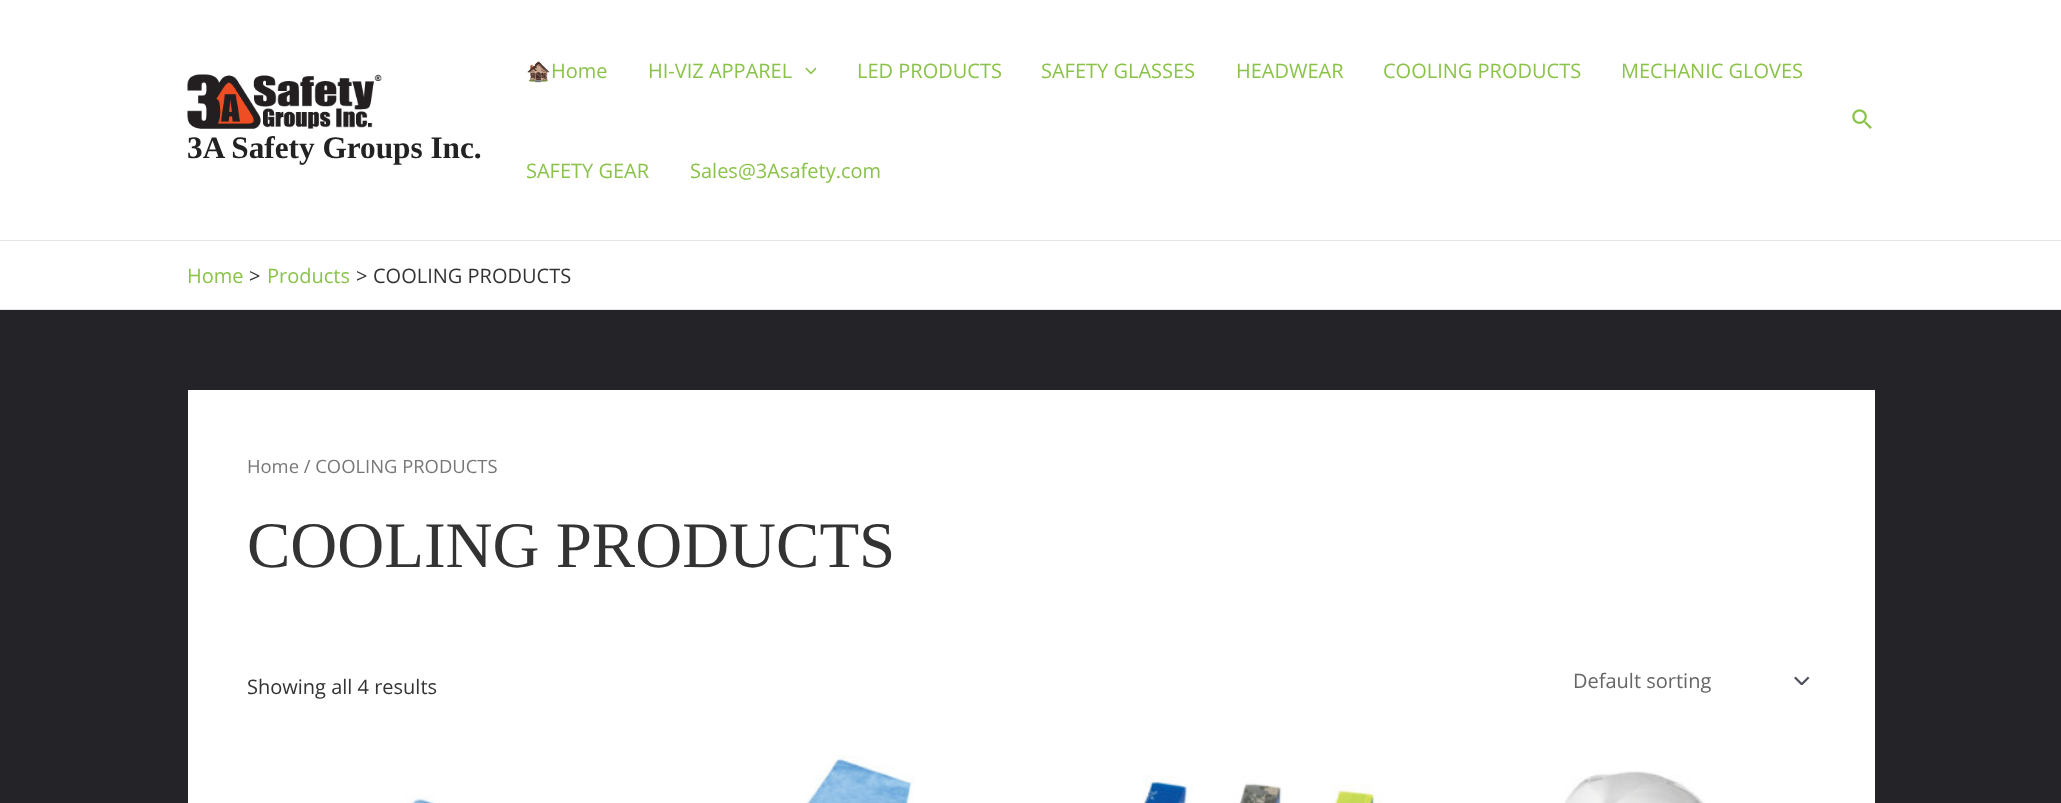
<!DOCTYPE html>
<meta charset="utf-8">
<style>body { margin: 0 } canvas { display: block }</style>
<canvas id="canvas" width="2061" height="803"></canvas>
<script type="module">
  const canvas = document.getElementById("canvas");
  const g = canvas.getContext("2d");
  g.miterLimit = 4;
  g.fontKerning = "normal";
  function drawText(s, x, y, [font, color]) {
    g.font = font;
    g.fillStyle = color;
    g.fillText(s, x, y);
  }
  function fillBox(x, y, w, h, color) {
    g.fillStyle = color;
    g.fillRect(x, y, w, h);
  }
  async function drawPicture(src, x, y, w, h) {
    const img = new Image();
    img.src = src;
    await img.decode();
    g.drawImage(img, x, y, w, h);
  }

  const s1 = ["bold 31.25px Liberation Serif", "#222222"];
  const s2 = ["20px Noto Color Emoji", "#8BC34A"];
  const s3 = ["20px Open Sans", "#8BC34A"];
  const s4 = ["20px Open Sans", "#333333"];
  const s5 = ["18.4px Open Sans", "#777777"];
  const s6 = ["65px Liberation Serif", "#333333"];
  const s7 = ["20px Open Sans", "#666666"];

  fillBox(0, 0, 2061, 803, "#232328");
  fillBox(0, 0, 2061, 240, "#FFFFFF");
  fillBox(0, 240, 2061, 1, "#E5E5E5");
  await drawPicture("pic1.png", 187, 74, 195, 55);
  drawText("3A Safety Groups Inc.", 187, 158, s1);
  drawText("🏚️", 526, 78, s2);
  drawText("Home", 551, 78, s3);
  drawText("HI-VIZ APPAREL", 648, 78, s3);
  await drawPicture("pic2.png", 805, 67, 11, 8);
  drawText("LED PRODUCTS", 857, 78, s3);
  drawText("SAFETY GLASSES", 1041, 78, s3);
  drawText("HEADWEAR", 1236, 78, s3);
  drawText("COOLING PRODUCTS", 1383, 78, s3);
  drawText("MECHANIC GLOVES", 1621, 78, s3);
  drawText("SAFETY GEAR", 526, 178, s3);
  drawText("Sales@3Asafety.com", 690, 178, s3);
  await drawPicture("pic3.png", 1852, 109, 20, 20);
  fillBox(0, 241, 2061, 68, "#FFFFFF");
  fillBox(0, 309, 2061, 1, "#E5E5E5");
  drawText("Home", 187, 283, s3);
  drawText(">", 249, 283, s4);
  drawText("Products", 267, 283, s3);
  drawText(">", 356, 283, s4);
  drawText("COOLING PRODUCTS", 373, 283, s4);
  fillBox(188, 390, 1687, 413, "#FFFFFF");
  drawText("Home / COOLING PRODUCTS", 247, 473, s5);
  drawText("COOLING PRODUCTS", 247, 567, s6);
  drawText("Showing all 4 results", 247, 694, s4);
  await drawPicture("pic4.png", 1794, 676, 16, 9);
  drawText("Default sorting", 1573, 688, s7);
  await drawPicture("pic5.png", 406, 795, 30, 8);
  await drawPicture("pic6.png", 805, 755, 109, 48);
  await drawPicture("pic7.png", 1143, 775, 239, 28);
  await drawPicture("pic8.png", 1564, 771, 141, 32);
</script>
